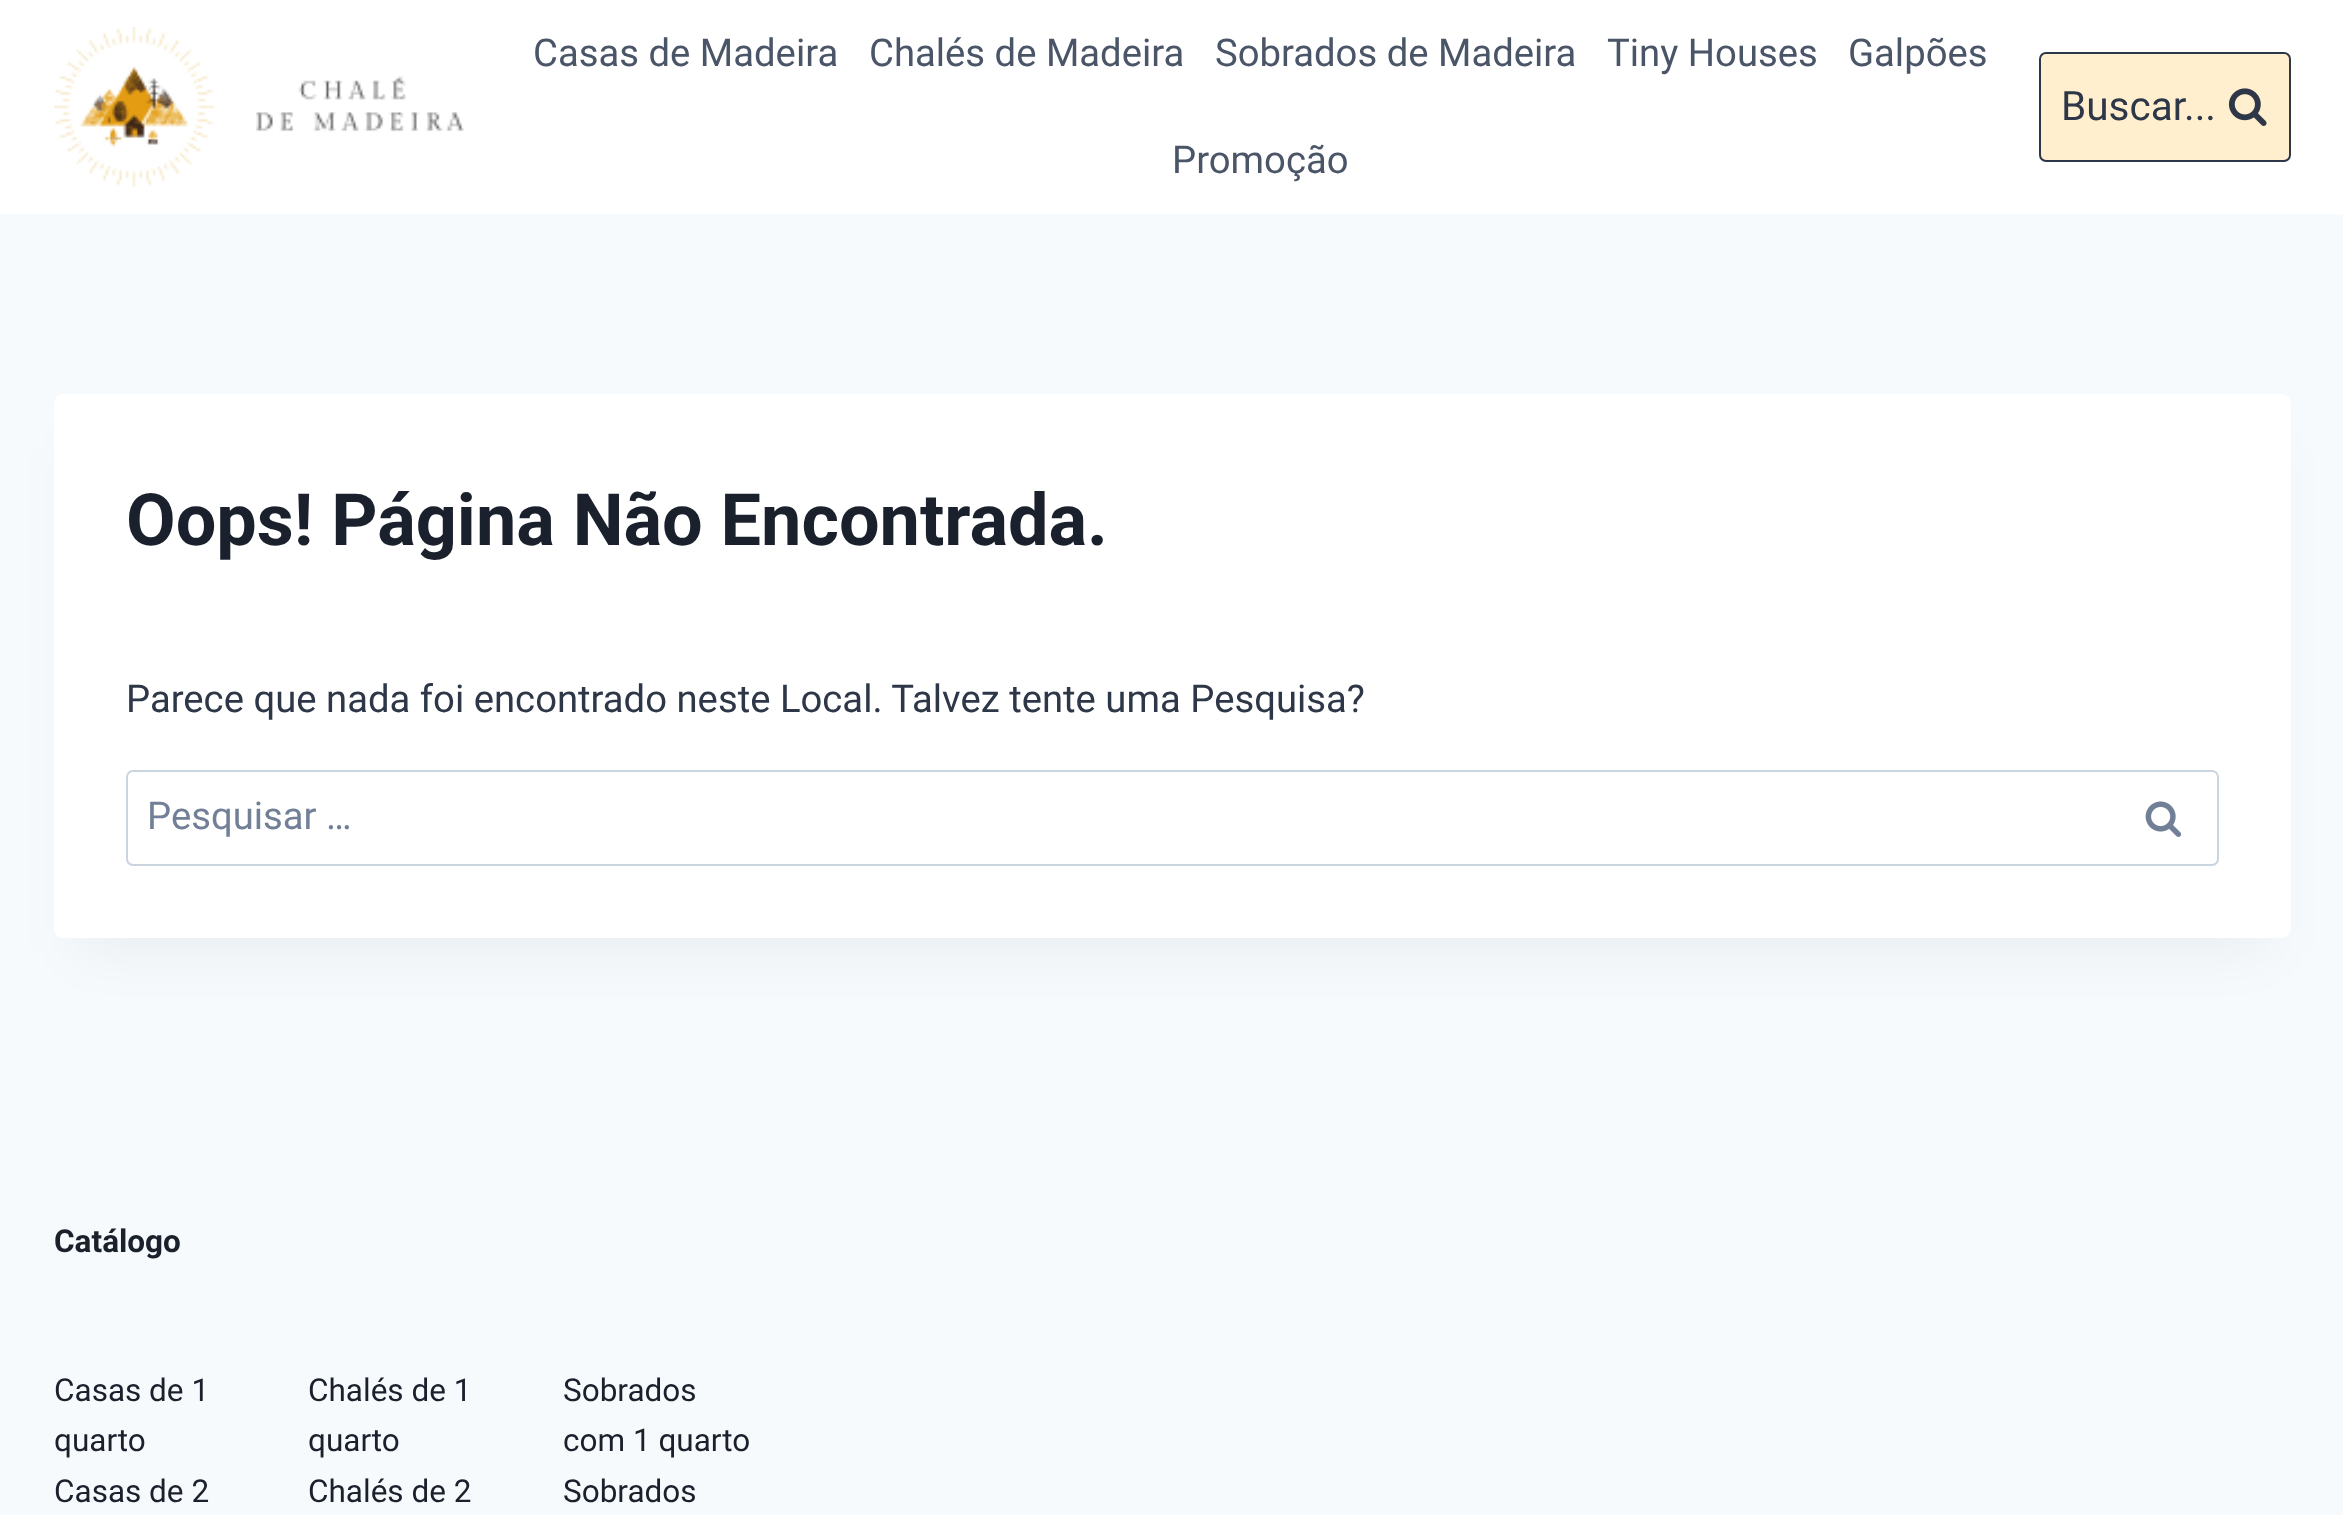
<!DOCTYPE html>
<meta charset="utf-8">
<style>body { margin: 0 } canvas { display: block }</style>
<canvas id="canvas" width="2343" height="1515"></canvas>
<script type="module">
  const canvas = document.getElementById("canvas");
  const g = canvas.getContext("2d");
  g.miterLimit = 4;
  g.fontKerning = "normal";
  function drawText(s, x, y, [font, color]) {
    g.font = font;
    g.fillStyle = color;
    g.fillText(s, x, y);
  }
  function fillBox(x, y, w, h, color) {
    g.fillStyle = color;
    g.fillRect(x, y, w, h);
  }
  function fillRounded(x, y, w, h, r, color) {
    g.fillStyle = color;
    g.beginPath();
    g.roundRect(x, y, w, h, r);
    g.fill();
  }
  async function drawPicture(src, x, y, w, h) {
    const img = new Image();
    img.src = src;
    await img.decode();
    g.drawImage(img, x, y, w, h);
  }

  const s1 = ["38.25px Roboto", "#4A5568"];
  const s2 = ["40.5px Roboto", "#2D3748"];
  const s3 = ["bold 72px Roboto", "#1A202C"];
  const s4 = ["38.25px Roboto", "#2D3748"];
  const s5 = ["38.25px Roboto", "#718096"];
  const s6 = ["bold 31.5px Roboto", "#1A202C"];
  const s7 = ["31.5px Roboto", "#1A202C"];

  fillBox(0, 0, 2343, 1515, "#F7FAFC");
  fillBox(0, 0, 2343, 214, "#FFFFFF");
  await drawPicture("pic1.png", 54, 27, 410, 160);
  drawText("Casas de Madeira", 533, 66, s1);
  drawText("Chalés de Madeira", 869, 66, s1);
  drawText("Sobrados de Madeira", 1215, 66, s1);
  drawText("Tiny Houses", 1607, 66, s1);
  drawText("Galpões", 1848, 66, s1);
  drawText("Promoção", 1172, 173, s1);
  g.fillStyle = "#FFEFCE";
  g.beginPath();
  g.roundRect(2040, 53, 250, 108, 6);
  g.fill();
  g.strokeStyle = "#2D3748";
  g.lineWidth = 2;
  g.stroke();
  drawText("Buscar...", 2061, 120, s2);
  await drawPicture("pic2.png", 2228, 88, 39, 38);
  g.fillStyle = "rgba(0, 0, 0, 0.05)";
  g.filter = "blur(28px)";
  g.beginPath();
  g.rect(77, 450, 2191, 500);
  g.fill();
  g.filter = "none";
  fillRounded(54, 394, 2237, 544, 9, "#FFFFFF");
  drawText("Oops! Página Não Encontrada.", 126, 545, s3);
  drawText("Parece que nada foi encontrado neste Local. Talvez tente uma Pesquisa?", 126, 712, s4);
  g.beginPath();
  g.roundRect(127, 771, 2091, 94, 6);
  g.strokeStyle = "#CBD5E0";
  g.stroke();
  drawText("Pesquisar …", 147, 829, s5);
  await drawPicture("pic3.png", 2145, 801, 37, 36);
  drawText("Catálogo", 54, 1252, s6);
  drawText("Casas de 1", 54, 1401, s7);
  drawText("quarto", 54, 1451, s7);
  drawText("Casas de 2", 54, 1502, s7);
  drawText("Chalés de 1", 308, 1401, s7);
  drawText("quarto", 308, 1451, s7);
  drawText("Chalés de 2", 308, 1502, s7);
  drawText("Sobrados", 563, 1401, s7);
  drawText("com 1 quarto", 563, 1451, s7);
  drawText("Sobrados", 563, 1502, s7);
</script>
